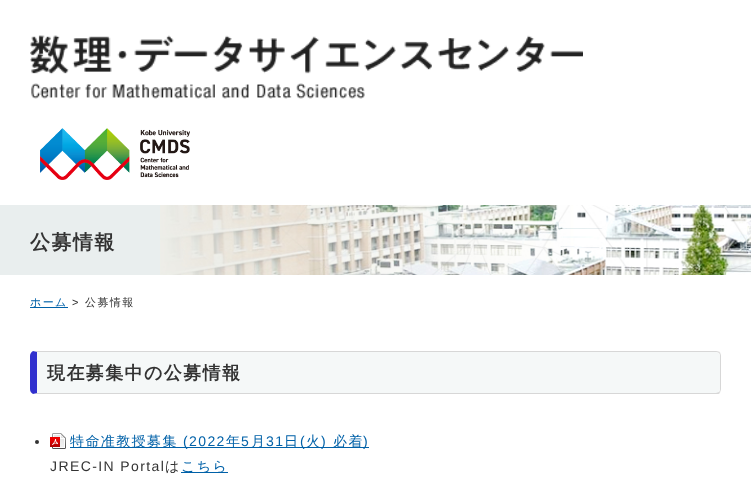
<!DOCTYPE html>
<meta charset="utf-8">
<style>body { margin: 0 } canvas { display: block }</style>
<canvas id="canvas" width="751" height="482"></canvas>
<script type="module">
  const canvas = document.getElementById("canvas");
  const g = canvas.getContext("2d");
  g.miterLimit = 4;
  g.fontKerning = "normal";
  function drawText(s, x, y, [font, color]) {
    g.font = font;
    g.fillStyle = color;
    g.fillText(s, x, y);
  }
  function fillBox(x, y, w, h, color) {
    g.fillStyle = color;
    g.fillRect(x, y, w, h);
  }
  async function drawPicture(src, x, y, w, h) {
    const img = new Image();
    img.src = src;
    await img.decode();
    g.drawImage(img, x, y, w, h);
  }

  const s1 = ["bold 20px WenQuanYi Zen Hei", "#333333"];
  const s2 = ["500 11px WenQuanYi Zen Hei", "#0061A8"];
  const s3 = ["11px Liberation Sans", "#333333"];
  const s4 = ["500 11px WenQuanYi Zen Hei", "#333333"];
  const s5 = ["bold 18px WenQuanYi Zen Hei", "#333333"];
  const s6 = ["500 14px WenQuanYi Zen Hei", "#0061A8"];
  const s7 = ["14px Liberation Sans", "#0061A8"];
  const s8 = ["14px Liberation Sans", "#333333"];
  const s9 = ["500 14px WenQuanYi Zen Hei", "#333333"];

  fillBox(0, 0, 751, 482, "#FFFFFF");
  await drawPicture("pic1.png", 30, 35, 553, 64);
  await drawPicture("pic2.png", 40, 128, 150, 52);
  fillBox(0, 205, 160, 70, "#E9EEEE");
  await drawPicture("pic3.png", 160, 205, 591, 70);
  g.letterSpacing = "1.4px";
  drawText("公募情報", 30, 249, s1);
  fillBox(30, 307, 38, 1, "#0061A8");
  drawText("ホーム", 30, 306, s2);
  drawText(">", 72, 306, s3);
  drawText("公募情報", 85, 306, s4);
  g.fillStyle = "#F5F8F8";
  g.beginPath();
  g.moveTo(37, 352);
  g.lineTo(716, 352);
  g.bezierCurveTo(718, 352, 720, 354, 720, 356);
  g.lineTo(720, 389);
  g.bezierCurveTo(720, 391, 718, 393, 716, 393);
  g.lineTo(37, 393);
  g.closePath();
  g.fill();
  g.fillStyle = "#D7D7D7";
  g.beginPath();
  g.moveTo(35, 351);
  g.lineTo(33, 351);
  g.lineTo(37, 352);
  g.lineTo(716, 352);
  g.bezierCurveTo(717, 352, 718, 352, 719, 353);
  g.lineTo(720, 352);
  g.bezierCurveTo(719, 352, 718, 351, 716, 351);
  g.closePath();
  g.fill();
  g.beginPath();
  g.moveTo(721, 389);
  g.lineTo(721, 356);
  g.bezierCurveTo(721, 354, 720, 353, 720, 352);
  g.lineTo(719, 353);
  g.bezierCurveTo(720, 354, 720, 355, 720, 356);
  g.lineTo(720, 389);
  g.bezierCurveTo(720, 390, 720, 391, 719, 392);
  g.lineTo(720, 393);
  g.bezierCurveTo(720, 392, 721, 390, 721, 389);
  g.closePath();
  g.fill();
  g.beginPath();
  g.moveTo(35, 394);
  g.lineTo(716, 394);
  g.bezierCurveTo(718, 394, 719, 394, 720, 393);
  g.lineTo(719, 392);
  g.bezierCurveTo(718, 392, 717, 393, 716, 393);
  g.lineTo(37, 393);
  g.lineTo(33, 394);
  g.closePath();
  g.fill();
  g.fillStyle = "#3030CE";
  g.beginPath();
  g.moveTo(37, 352);
  g.lineTo(33, 351);
  g.bezierCurveTo(31, 352, 30, 354, 30, 356);
  g.lineTo(30, 389);
  g.bezierCurveTo(30, 391, 31, 393, 33, 394);
  g.lineTo(37, 393);
  g.closePath();
  g.fill();
  drawText("現在募集中の公募情報", 47, 379, s5);
  g.beginPath();
  g.arc(37, 442, 2, 0, Math.PI * 2);
  g.fill();
  await drawPicture("pic4.png", 50, 433, 16, 16);
  fillBox(70, 447, 299, 1, "#0061A8");
  drawText("特命准教授募集", 70, 446, s6);
  drawText("(2022", 183, 446, s7);
  drawText("年", 226, 446, s6);
  drawText("5", 241, 446, s7);
  drawText("月", 251, 446, s6);
  drawText("31", 266, 446, s7);
  drawText("日", 284, 446, s6);
  drawText("(", 300, 446, s7);
  drawText("火", 306, 446, s6);
  drawText(")", 321, 446, s7);
  drawText("必着", 333, 446, s6);
  drawText(")", 363, 446, s7);
  drawText("JREC-IN Portal", 50, 471, s8);
  drawText("は", 165, 471, s9);
  fillBox(181, 472, 47, 1, "#0061A8");
  drawText("こちら", 181, 471, s6);
</script>
